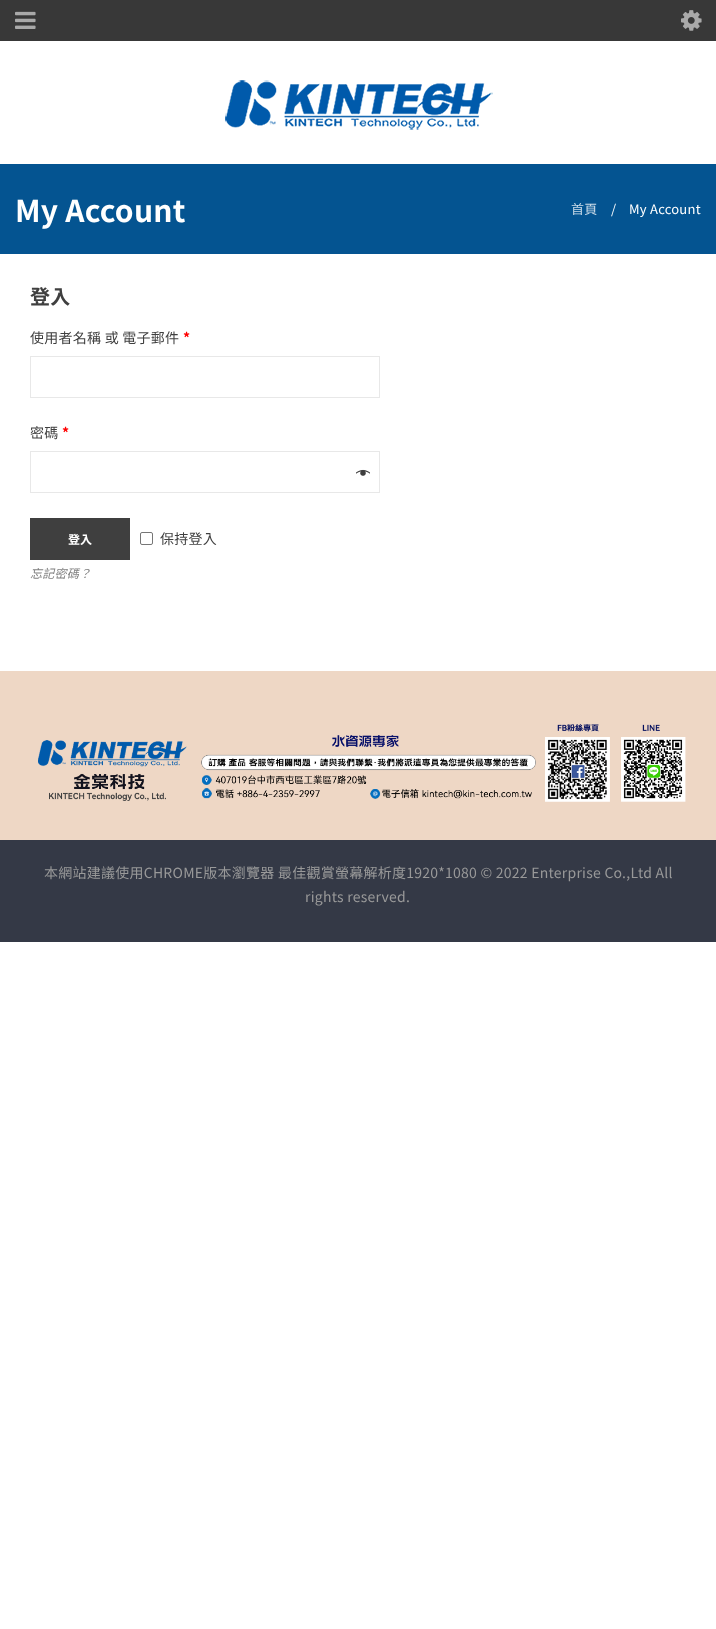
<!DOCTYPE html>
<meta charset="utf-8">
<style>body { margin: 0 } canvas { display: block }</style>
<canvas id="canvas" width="716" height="1629"></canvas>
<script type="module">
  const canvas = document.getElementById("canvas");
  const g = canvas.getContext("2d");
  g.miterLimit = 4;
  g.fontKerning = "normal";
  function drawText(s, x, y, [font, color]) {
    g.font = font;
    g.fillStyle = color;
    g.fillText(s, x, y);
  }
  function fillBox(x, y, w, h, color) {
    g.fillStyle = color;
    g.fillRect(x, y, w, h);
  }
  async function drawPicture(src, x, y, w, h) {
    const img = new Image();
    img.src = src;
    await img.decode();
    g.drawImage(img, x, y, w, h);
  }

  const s1 = ["bold 30px Noto Sans TC", "#FFFFFF"];
  const s2 = ["13px Noto Sans TC", "#CDDDE9"];
  const s3 = ["13px Noto Sans TC", "#FFFFFF"];
  const s4 = ["bold 20px Noto Sans TC", "#3F3F3F"];
  const s5 = ["14px Noto Sans TC", "#3F3F3F"];
  const s6 = ["bold 14px Noto Sans TC", "#FF0000"];
  const s7 = ["bold 12px Noto Sans TC", "#FFFFFF"];
  const s8 = ["italic 12px Noto Sans TC", "#808080"];
  const s9 = ["14px Noto Sans TC", "#999999"];

  fillBox(0, 0, 716, 1629, "#FFFFFF");
  fillBox(0, 0, 716, 41, "#383838");
  await drawPicture("pic1.png", 15, 11, 21, 18);
  await drawPicture("pic2.png", 681, 10, 21, 21);
  await drawPicture("pic3.png", 225, 80, 268, 50);
  fillBox(0, 164, 716, 90, "#045491");
  g.letterSpacing = "0.25px";
  drawText("My Account", 15, 222, s1);
  drawText("首頁", 571, 214, s2);
  drawText("/", 611, 214, s3);
  drawText("My Account", 629, 214, s3);
  drawText("登入", 30, 304, s4);
  drawText("使用者名稱 或 電子郵件", 30, 343, s5);
  drawText("*", 183, 343, s6);
  g.strokeStyle = "#E8E8E8";
  g.strokeRect(30.5, 356.5, 349, 41);
  drawText("密碼", 30, 438, s5);
  drawText("*", 62, 438, s6);
  g.strokeRect(30.5, 451.5, 349, 41);
  await drawPicture("pic4.png", 356, 469, 14, 7);
  fillBox(30, 518, 100, 42, "#3F3F3F");
  g.letterSpacing = "0px";
  drawText("登入", 68, 544, s7);
  g.beginPath();
  g.roundRect(140.5, 532.5, 12, 12, 1.5);
  g.strokeStyle = "#767676";
  g.stroke();
  g.letterSpacing = "0.25px";
  drawText("保持登入", 160, 544, s5);
  drawText("忘記密碼？", 30, 578, s8);
  fillBox(0, 671, 716, 169, "#EED7C5");
  await drawPicture("pic5.png", 38, 724, 648, 78);
  fillBox(0, 840, 716, 102, "#343946");
  drawText("本網站建議使用CHROME版本瀏覽器 最佳觀賞螢幕解析度1920*1080 © 2022 Enterprise Co.,Ltd All", 44, 878, s9);
  drawText("rights reserved.", 305, 902, s9);
</script>
